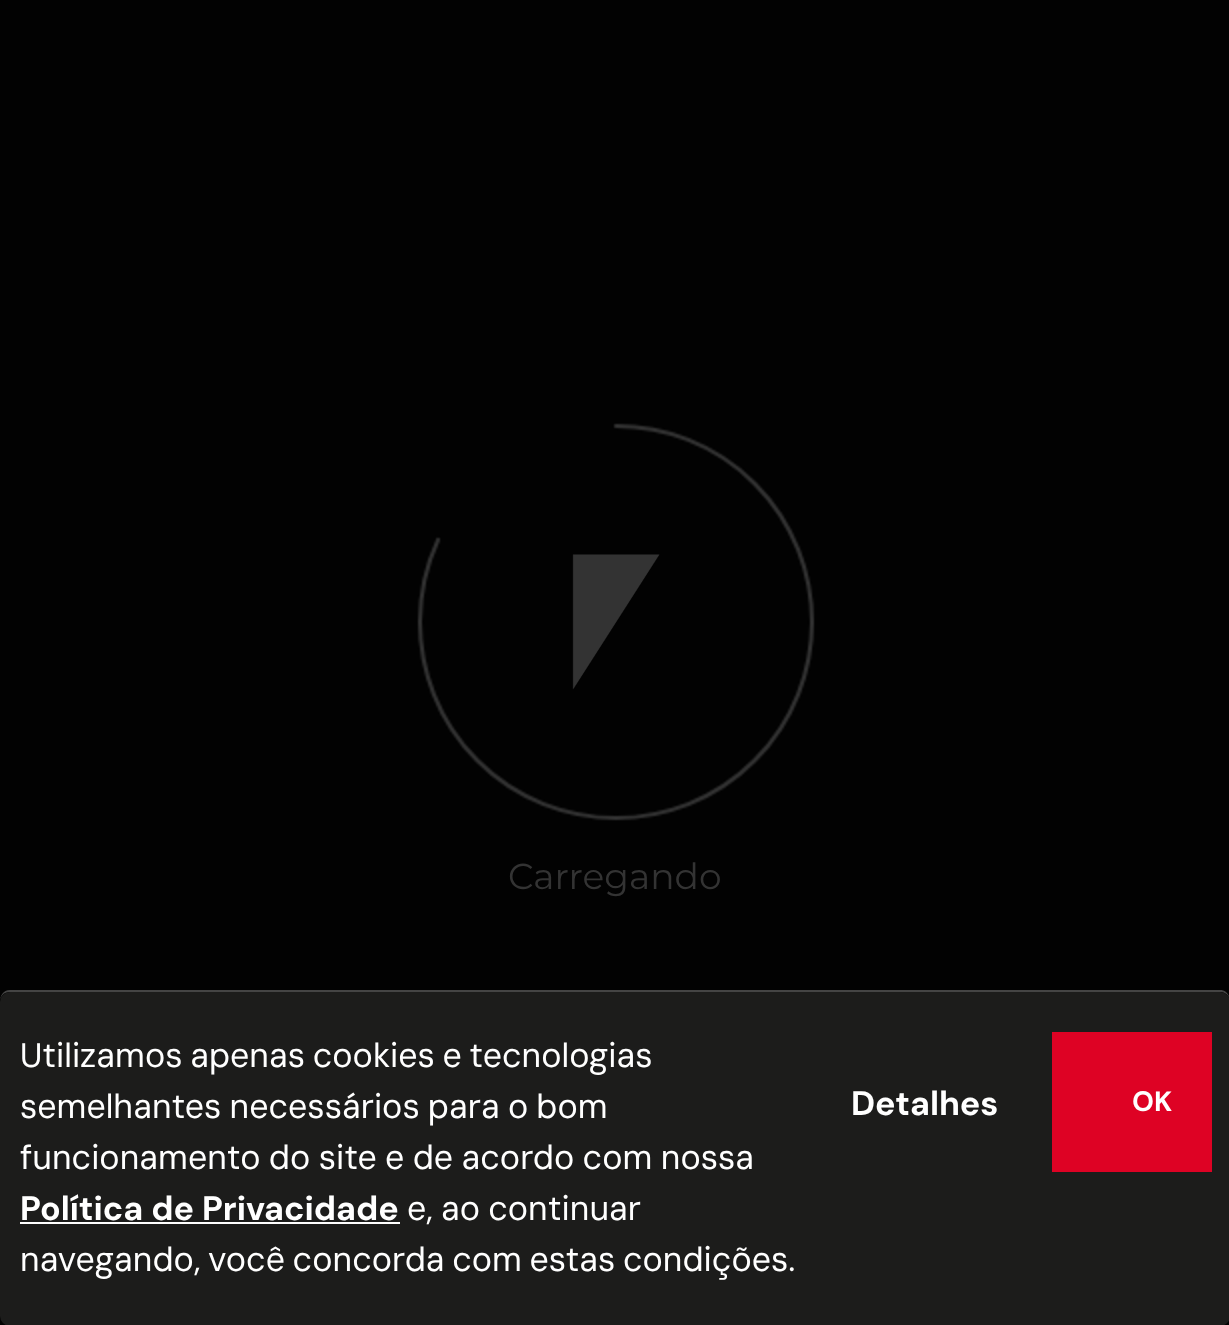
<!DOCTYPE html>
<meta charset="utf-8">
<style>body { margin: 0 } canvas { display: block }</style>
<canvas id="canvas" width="1229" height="1325"></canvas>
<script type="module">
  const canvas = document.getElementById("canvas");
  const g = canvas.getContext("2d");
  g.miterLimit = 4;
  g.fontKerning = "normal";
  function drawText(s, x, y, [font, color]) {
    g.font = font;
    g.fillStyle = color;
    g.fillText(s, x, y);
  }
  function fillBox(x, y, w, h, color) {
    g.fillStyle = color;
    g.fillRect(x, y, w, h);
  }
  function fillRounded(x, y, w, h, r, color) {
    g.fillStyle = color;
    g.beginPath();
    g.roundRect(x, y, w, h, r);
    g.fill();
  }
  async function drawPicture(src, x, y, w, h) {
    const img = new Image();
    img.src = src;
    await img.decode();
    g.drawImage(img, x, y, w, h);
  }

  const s1 = ["36px Montserrat", "#333333"];
  const s2 = ["34px DM Sans", "#FFFFFF"];
  const s3 = ["bold 34px DM Sans", "#FFFFFF"];
  const s4 = ["bold 28px 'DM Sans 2'", "#FFFFFF"];

  fillBox(0, 0, 1229, 1325, "#020202");
  await drawPicture("pic1.png", 417, 423, 398, 398);
  await drawPicture("pic2.png", 572, 554, 88, 136);
  drawText("Carregando", 508, 889, s1);
  g.fillStyle = "#444444";
  g.beginPath();
  g.moveTo(10, 990);
  g.bezierCurveTo(3, 990, 0, 996, 0, 1002);
  g.bezierCurveTo(0, 996, 4, 992, 10, 992);
  g.lineTo(1220, 992);
  g.bezierCurveTo(1226, 992, 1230, 996, 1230, 1002);
  g.bezierCurveTo(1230, 996, 1227, 990, 1220, 990);
  g.closePath();
  g.fill();
  fillRounded(0, 992, 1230, 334, 10, "#1C1C1B");
  g.wordSpacing = "-1.5px";
  drawText("Utilizamos apenas cookies e tecnologias", 20, 1067, s2);
  g.wordSpacing = "-1px";
  drawText("semelhantes necessários para o bom", 20, 1118, s2);
  g.wordSpacing = "-0.75px";
  drawText("funcionamento do site e de acordo com nossa", 20, 1169, s2);
  g.wordSpacing = "0px";
  drawText("Política de Privacidade", 20, 1220, s3);
  fillBox(20, 1222, 380, 2, "#FFFFFF");
  g.wordSpacing = "-1px";
  drawText("e, ao continuar", 407, 1220, s2);
  g.wordSpacing = "-1.5px";
  drawText("navegando, você concorda com estas condições.", 20, 1271, s2);
  g.wordSpacing = "0px";
  drawText("Detalhes", 851, 1115, s3);
  fillBox(1052, 1032, 160, 140, "#DE0224");
  drawText("OK", 1132, 1111, s4);
</script>
